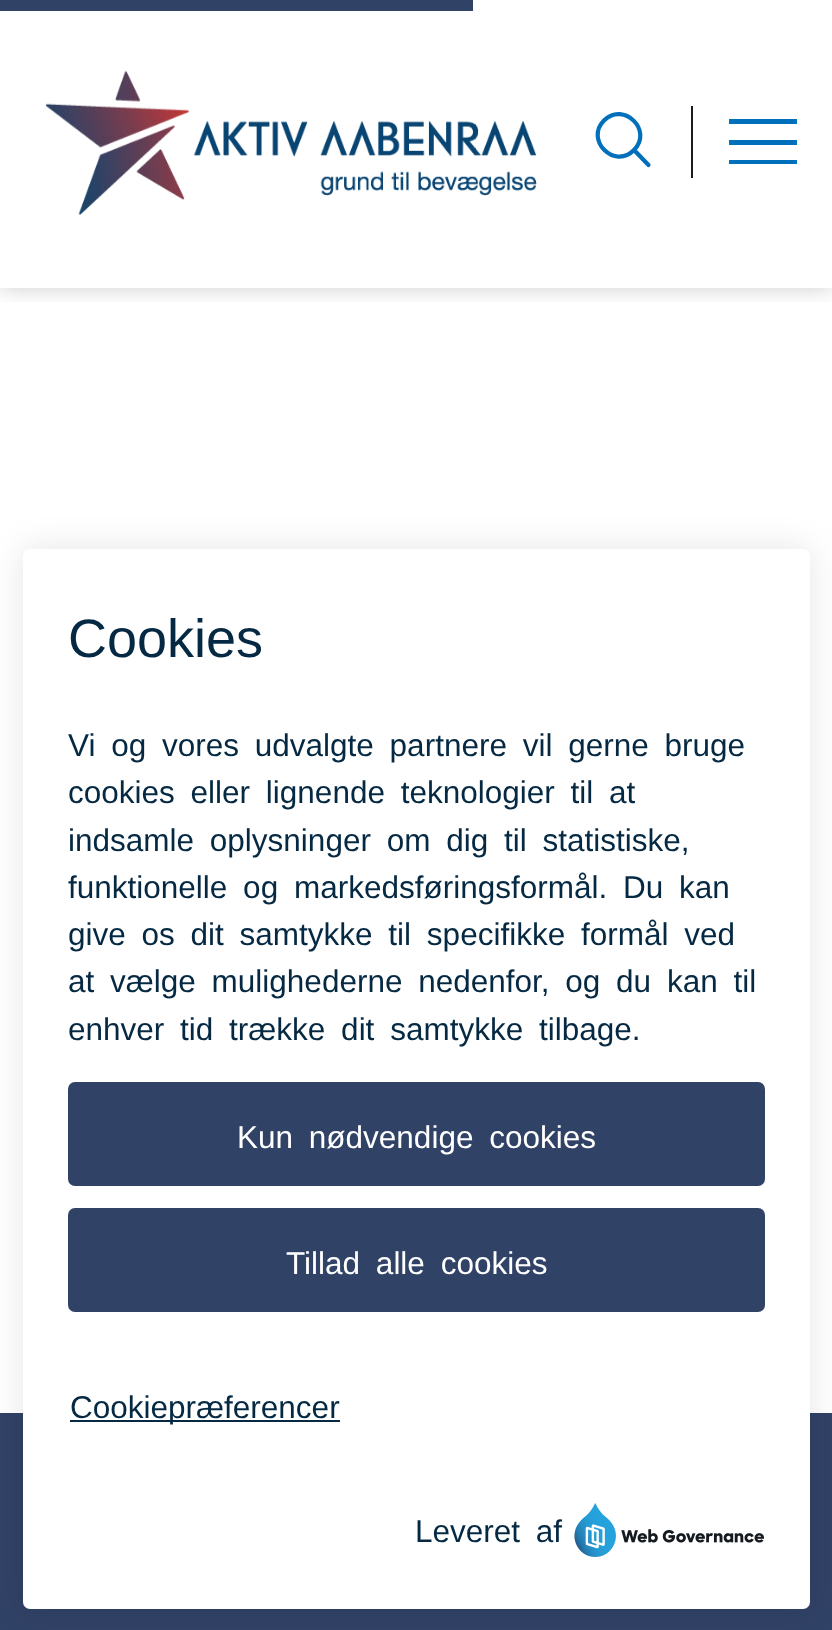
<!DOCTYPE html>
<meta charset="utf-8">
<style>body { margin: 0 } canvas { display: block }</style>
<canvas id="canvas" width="832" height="1630"></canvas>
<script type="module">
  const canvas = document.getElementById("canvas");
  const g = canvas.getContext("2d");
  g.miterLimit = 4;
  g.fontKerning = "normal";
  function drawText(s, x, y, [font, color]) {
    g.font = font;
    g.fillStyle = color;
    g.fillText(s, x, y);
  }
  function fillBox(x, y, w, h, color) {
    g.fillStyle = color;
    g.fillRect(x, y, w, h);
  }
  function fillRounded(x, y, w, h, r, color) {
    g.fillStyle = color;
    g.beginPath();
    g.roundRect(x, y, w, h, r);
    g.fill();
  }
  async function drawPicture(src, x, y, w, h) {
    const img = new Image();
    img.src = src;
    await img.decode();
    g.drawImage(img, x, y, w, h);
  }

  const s1 = ["54px Liberation Sans", "#052942"];
  const s2 = ["31.5px Liberation Sans", "#052942"];
  const s3 = ["31.5px Liberation Sans", "#FFFFFF"];

  fillBox(0, 0, 832, 1630, "#FFFFFF");
  g.save();
  g.beginPath();
  g.rect(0, 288, 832, 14);
  g.clip();
  g.fillStyle = "rgba(0, 0, 0, 0.2)";
  g.filter = "blur(11px)";
  g.beginPath();
  g.rect(0, -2, 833, 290);
  g.fill();
  g.filter = "none";
  g.restore();
  await drawPicture("pic1.png", 45, 70, 492, 145);
  fillBox(691, 106, 2, 72, "#1B1B1B");
  g.beginPath();
  g.moveTo(648.5, 165);
  g.lineTo(634, 150);
  g.moveTo(634, 150);
  g.bezierCurveTo(653.5, 130.5, 623.5, 101, 604, 120.5);
  g.bezierCurveTo(584.5, 140, 614.5, 170, 634, 150);
  g.closePath();
  g.strokeStyle = "#0070BA";
  g.lineWidth = 4.2;
  g.lineCap = "round";
  g.lineJoin = "round";
  g.stroke();
  fillBox(729, 119, 68, 5, "#0070BA");
  fillBox(729, 140, 68, 5, "#0070BA");
  fillBox(729, 160, 68, 4, "#0070BA");
  fillBox(0, 0, 473, 11, "#314267");
  fillBox(0, 1413, 832, 217, "#314267");
  g.fillStyle = "rgba(0, 0, 0, 0.1)";
  g.filter = "blur(17px)";
  g.beginPath();
  g.roundRect(23, 549, 787, 1060, 7);
  g.fill();
  g.filter = "none";
  fillRounded(23, 549, 787, 1060, 7, "#FFFFFF");
  drawText("Cookies", 68, 657, s1);
  g.wordSpacing = "7px";
  drawText("Vi og vores udvalgte partnere vil gerne bruge", 68, 756, s2);
  drawText("cookies eller lignende teknologier til at", 68, 803, s2);
  drawText("indsamle oplysninger om dig til statistiske,", 68, 851, s2);
  drawText("funktionelle og markedsføringsformål. Du kan", 68, 898, s2);
  drawText("give os dit samtykke til specifikke formål ved", 68, 945, s2);
  drawText("at vælge mulighederne nedenfor, og du kan til", 68, 992, s2);
  drawText("enhver tid trække dit samtykke tilbage.", 68, 1040, s2);
  fillRounded(68, 1082, 697, 104, 7, "#314267");
  drawText("Kun nødvendige cookies", 237, 1148, s3);
  fillRounded(68, 1208, 697, 104, 7, "#314267");
  drawText("Tillad alle cookies", 286, 1274, s3);
  fillBox(70, 1420, 270, 2, "#052942");
  g.wordSpacing = "0px";
  drawText("Cookiepræferencer", 70, 1418, s2);
  g.wordSpacing = "7px";
  drawText("Leveret af", 415, 1542, s2);
  await drawPicture("pic2.png", 574, 1503, 190, 54);
</script>
